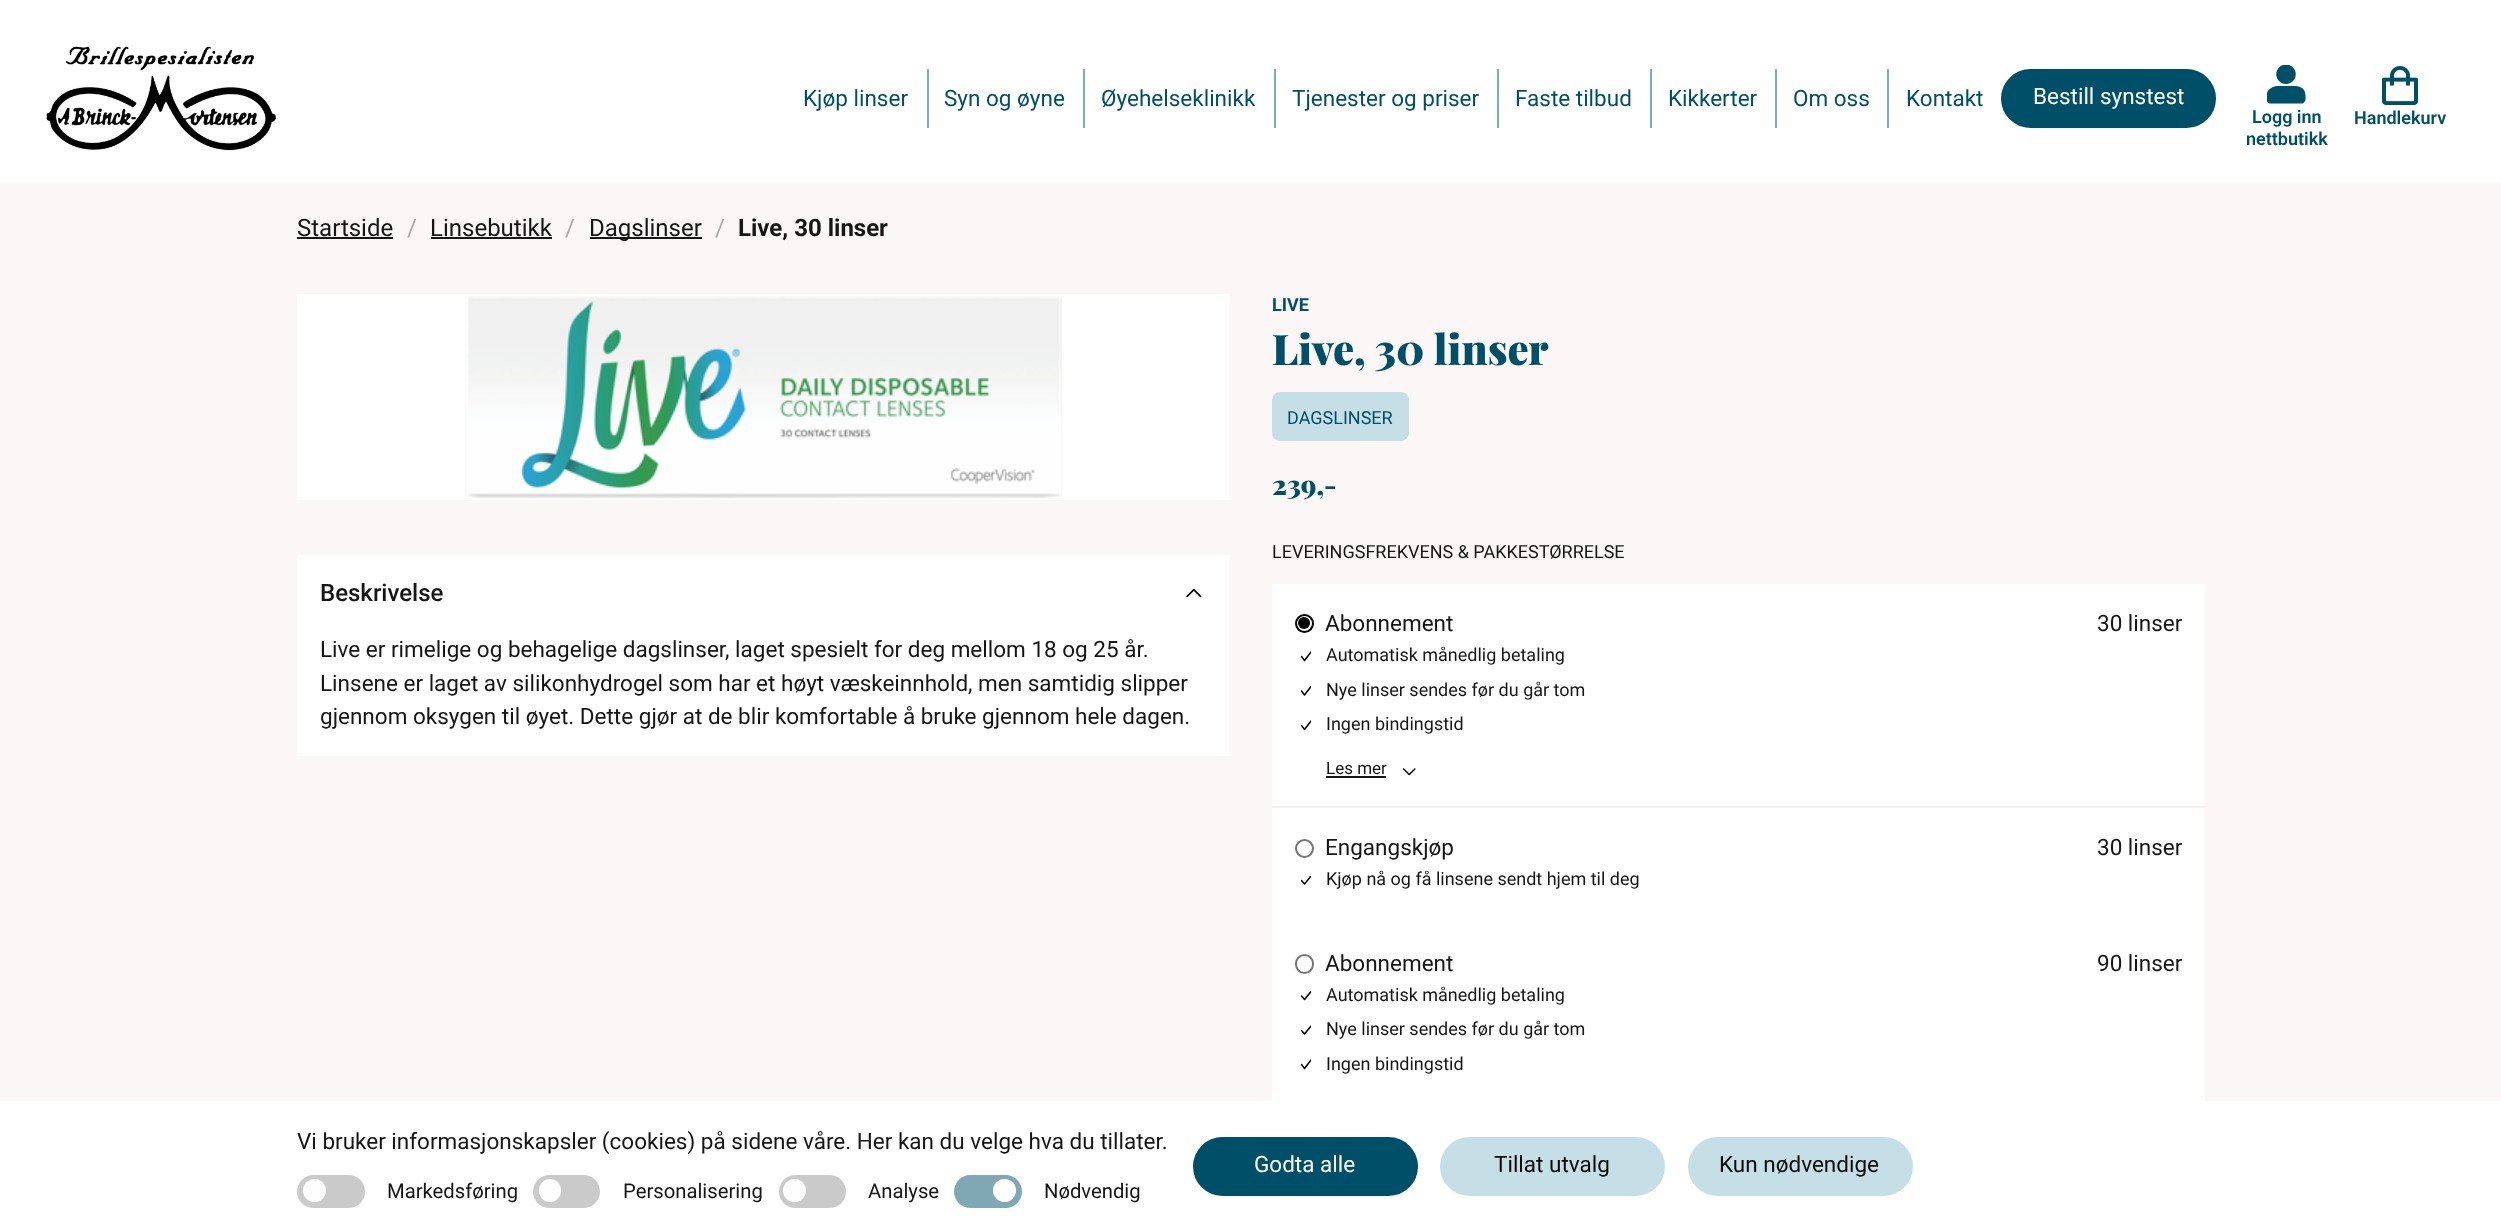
<!DOCTYPE html>
<meta charset="utf-8">
<style>body { margin: 0 } canvas { display: block }</style>
<canvas id="canvas" width="2501" height="1225"></canvas>
<script type="module">
  const canvas = document.getElementById("canvas");
  const g = canvas.getContext("2d");
  g.miterLimit = 4;
  g.fontKerning = "normal";
  function drawText(s, x, y, [font, color]) {
    g.font = font;
    g.fillStyle = color;
    g.fillText(s, x, y);
  }
  function fillBox(x, y, w, h, color) {
    g.fillStyle = color;
    g.fillRect(x, y, w, h);
  }
  function fillRounded(x, y, w, h, r, color) {
    g.fillStyle = color;
    g.beginPath();
    g.roundRect(x, y, w, h, r);
    g.fill();
  }
  async function drawPicture(src, x, y, w, h) {
    const img = new Image();
    img.src = src;
    await img.decode();
    g.drawImage(img, x, y, w, h);
  }

  const s1 = ["22.5px Roboto", "#004F68"];
  const s2 = ["22.5px Roboto", "#FEFEFE"];
  const s3 = ["600 18px Roboto", "#004F68"];
  const s4 = ["24px Roboto", "#161616"];
  const s5 = ["24px Roboto", "#AAAAAA"];
  const s6 = ["bold 24px Roboto", "#161616"];
  const s7 = ["500 24px Roboto", "#161616"];
  const s8 = ["22.5px Roboto", "#161616"];
  const s9 = ["bold 18px Roboto", "#004F68"];
  const s10 = ["900 42px Playfair Display", "#004F68"];
  const s11 = ["18px Roboto", "#004F68"];
  const s12 = ["900 27px Playfair Display", "#004F68"];
  const s13 = ["18px Roboto", "#161616"];
  const s14 = ["17px Roboto", "#161616"];
  const s15 = ["20.25px Roboto", "#161616"];
  const s16 = ["22.5px Roboto", "#0A0A0A"];

  fillBox(0, 0, 2501, 1225, "#FAF7F6");
  fillBox(0, 0, 2501, 183, "#FFFFFF");
  await drawPicture("pic1.png", 46, 46, 231, 105);
  drawText("Kjøp linser", 803, 106, s1);
  fillBox(927, 69, 2, 59, "#73B0C0");
  drawText("Syn og øyne", 944, 106, s1);
  fillBox(1083, 69, 2, 59, "#73B0C0");
  drawText("Øyehelseklinikk", 1101, 106, s1);
  fillBox(1274, 69, 2, 59, "#73B0C0");
  drawText("Tjenester og priser", 1292, 106, s1);
  fillBox(1497, 69, 2, 59, "#73B0C0");
  drawText("Faste tilbud", 1515, 106, s1);
  fillBox(1650, 69, 2, 59, "#73B0C0");
  drawText("Kikkerter", 1668, 106, s1);
  fillBox(1775, 69, 2, 59, "#73B0C0");
  drawText("Om oss", 1793, 106, s1);
  fillBox(1887, 69, 2, 59, "#73B0C0");
  drawText("Kontakt", 1906, 106, s1);
  g.beginPath();
  g.roundRect(2002, 70, 213, 57, 28.5);
  g.fill();
  g.strokeStyle = "#004F68";
  g.lineWidth = 2;
  g.stroke();
  drawText("Bestill synstest", 2033, 104, s2);
  await drawPicture("pic2.png", 2267, 65, 39, 39);
  drawText("Logg inn", 2252, 123, s3);
  drawText("nettbutikk", 2246, 145, s3);
  await drawPicture("pic3.png", 2382, 66, 36, 39);
  drawText("Handlekurv", 2354, 124, s3);
  drawText("Startside", 297, 236, s4);
  fillBox(297, 237, 96, 2, "#161616");
  drawText("/", 407, 236, s5);
  drawText("Linsebutikk", 430, 236, s4);
  fillBox(431, 237, 121, 2, "#161616");
  drawText("/", 565, 236, s5);
  fillBox(590, 237, 112, 2, "#161616");
  drawText("Dagslinser", 589, 236, s4);
  drawText("/", 715, 236, s5);
  drawText("Live, 30 linser", 738, 236, s6);
  fillBox(297, 294, 933, 206, "#FFFFFF");
  await drawPicture("pic4.png", 465, 296, 597, 203);
  fillBox(297, 555, 933, 201, "#FFFFFF");
  drawText("Beskrivelse", 320, 601, s7);
  await drawPicture("pic5.png", 1186, 588, 16, 10);
  drawText("Live er rimelige og behagelige dagslinser, laget spesielt for deg mellom 18 og 25 år.", 320, 657, s8);
  drawText("Linsene er laget av silikonhydrogel som har et høyt væskeinnhold, men samtidig slipper", 320, 691, s8);
  drawText("gjennom oksygen til øyet. Dette gjør at de blir komfortable å bruke gjennom hele dagen.", 320, 724, s8);
  drawText("LIVE", 1272, 311, s9);
  drawText("Live, 30 linser", 1272, 365, s10);
  fillRounded(1272, 392, 137, 49, 8, "#C6DFE7");
  drawText("DAGSLINSER", 1287, 424, s11);
  drawText("239,-", 1272, 495, s12);
  drawText("LEVERINGSFREKVENS & PAKKESTØRRELSE", 1272, 558, s13);
  fillBox(1272, 584, 933, 517, "#FFFFFF");
  fillBox(1272, 806, 933, 2, "#F2F2F2");
  g.beginPath();
  g.arc(1304.5, 623.5, 8.5, 0, Math.PI * 2);
  g.strokeStyle = "#000000";
  g.stroke();
  g.fillStyle = "#000000";
  g.beginPath();
  g.arc(1304, 623, 6, 0, Math.PI * 2);
  g.fill();
  drawText("Abonnement", 1325, 631, s8);
  drawText("30 linser", 2097, 631, s8);
  g.save();
  g.beginPath();
  g.rect(1301, 651, 10, 11);
  g.clip();
  g.beginPath();
  g.moveTo(1311, 652);
  g.lineTo(1304.5, 660.5);
  g.lineTo(1301.5, 656.5);
  g.lineWidth = 1.5;
  g.lineCap = "round";
  g.lineJoin = "round";
  g.stroke();
  g.restore();
  drawText("Automatisk månedlig betaling", 1326, 661, s13);
  g.save();
  g.beginPath();
  g.rect(1301, 686, 10, 10);
  g.clip();
  g.beginPath();
  g.moveTo(1311, 686.5);
  g.lineTo(1304.5, 695);
  g.lineTo(1301.5, 691);
  g.lineWidth = 1.5;
  g.lineCap = "round";
  g.lineJoin = "round";
  g.stroke();
  g.restore();
  drawText("Nye linser sendes før du går tom", 1326, 696, s13);
  g.save();
  g.beginPath();
  g.rect(1301, 720, 10, 11);
  g.clip();
  g.beginPath();
  g.moveTo(1311, 721);
  g.lineTo(1304.5, 729.5);
  g.lineTo(1301.5, 725.5);
  g.lineWidth = 1.5;
  g.lineCap = "round";
  g.lineJoin = "round";
  g.stroke();
  g.restore();
  drawText("Ingen bindingstid", 1326, 730, s13);
  drawText("Les mer", 1326, 774, s14);
  fillBox(1326, 776, 60, 2, "#161616");
  await drawPicture("pic6.png", 1403, 768, 13, 8);
  g.beginPath();
  g.arc(1304.5, 848.5, 8.5, 0, Math.PI * 2);
  g.strokeStyle = "#767676";
  g.stroke();
  drawText("Engangskjøp", 1325, 855, s8);
  drawText("30 linser", 2097, 855, s8);
  g.save();
  g.beginPath();
  g.rect(1301, 876, 10, 9);
  g.clip();
  g.beginPath();
  g.moveTo(1311, 876);
  g.lineTo(1304.5, 884);
  g.lineTo(1301.5, 880.5);
  g.strokeStyle = "#000000";
  g.lineWidth = 1.5;
  g.lineCap = "round";
  g.lineJoin = "round";
  g.stroke();
  g.restore();
  drawText("Kjøp nå og få linsene sendt hjem til deg", 1326, 885, s13);
  g.beginPath();
  g.roundRect(1296, 955, 17, 18, 8.5);
  g.stroke();
  drawText("Abonnement", 1325, 971, s8);
  drawText("90 linser", 2097, 971, s8);
  g.save();
  g.beginPath();
  g.rect(1301, 990, 10, 11);
  g.clip();
  g.beginPath();
  g.moveTo(1311, 991.5);
  g.lineTo(1304.5, 999.5);
  g.lineTo(1301.5, 996);
  g.strokeStyle = "#000000";
  g.lineWidth = 1.5;
  g.lineCap = "round";
  g.lineJoin = "round";
  g.stroke();
  g.restore();
  drawText("Automatisk månedlig betaling", 1326, 1001, s13);
  g.save();
  g.beginPath();
  g.rect(1301, 1025, 10, 10);
  g.clip();
  g.beginPath();
  g.moveTo(1311, 1026);
  g.lineTo(1304.5, 1034);
  g.lineTo(1301.5, 1030.5);
  g.strokeStyle = "#000000";
  g.lineWidth = 1.5;
  g.lineCap = "round";
  g.lineJoin = "round";
  g.stroke();
  g.restore();
  drawText("Nye linser sendes før du går tom", 1326, 1035, s13);
  g.save();
  g.beginPath();
  g.rect(1301, 1059, 10, 11);
  g.clip();
  g.beginPath();
  g.moveTo(1311, 1060);
  g.lineTo(1304.5, 1068.5);
  g.lineTo(1301.5, 1064.5);
  g.strokeStyle = "#000000";
  g.lineWidth = 1.5;
  g.lineCap = "round";
  g.lineJoin = "round";
  g.stroke();
  g.restore();
  drawText("Ingen bindingstid", 1326, 1070, s13);
  fillBox(0, 1101, 2501, 124, "#FFFFFF");
  drawText("Vi bruker informasjonskapsler (cookies) på sidene våre. Her kan du velge hva du tillater.", 297, 1149, s8);
  fillRounded(297, 1175, 68, 33, 16.5, "#CACACA");
  g.fillStyle = "#FEFEFE";
  g.beginPath();
  g.arc(314.5, 1190.5, 11.5, 0, Math.PI * 2);
  g.fill();
  drawText("Markedsføring", 387, 1198, s15);
  fillRounded(533, 1175, 67, 33, 16.5, "#CACACA");
  fillRounded(539, 1179, 22, 23, 11, "#FEFEFE");
  drawText("Personalisering", 623, 1198, s15);
  fillRounded(779, 1175, 67, 33, 16.5, "#CACACA");
  g.fillStyle = "#FEFEFE";
  g.beginPath();
  g.arc(794.5, 1190.5, 11.5, 0, Math.PI * 2);
  g.fill();
  drawText("Analyse", 868, 1198, s15);
  fillRounded(954, 1175, 68, 33, 16.5, "#80A7B4");
  g.fillStyle = "#FFFFFF";
  g.beginPath();
  g.arc(1004.5, 1190.5, 11.5, 0, Math.PI * 2);
  g.fill();
  drawText("Nødvendig", 1044, 1198, s15);
  g.fillStyle = "#004F68";
  g.beginPath();
  g.roundRect(1194, 1138, 223, 57, 28.5);
  g.fill();
  g.strokeStyle = "#004F68";
  g.stroke();
  drawText("Godta alle", 1254, 1172, s2);
  g.fillStyle = "#C6DFE7";
  g.beginPath();
  g.roundRect(1441, 1138, 223, 57, 28.5);
  g.fill();
  g.strokeStyle = "#C6DFE7";
  g.stroke();
  drawText("Tillat utvalg", 1494, 1172, s16);
  g.fillStyle = "#C6DFE7";
  g.beginPath();
  g.roundRect(1689, 1138, 223, 57, 28.5);
  g.fill();
  g.stroke();
  drawText("Kun nødvendige", 1719, 1172, s16);
</script>
